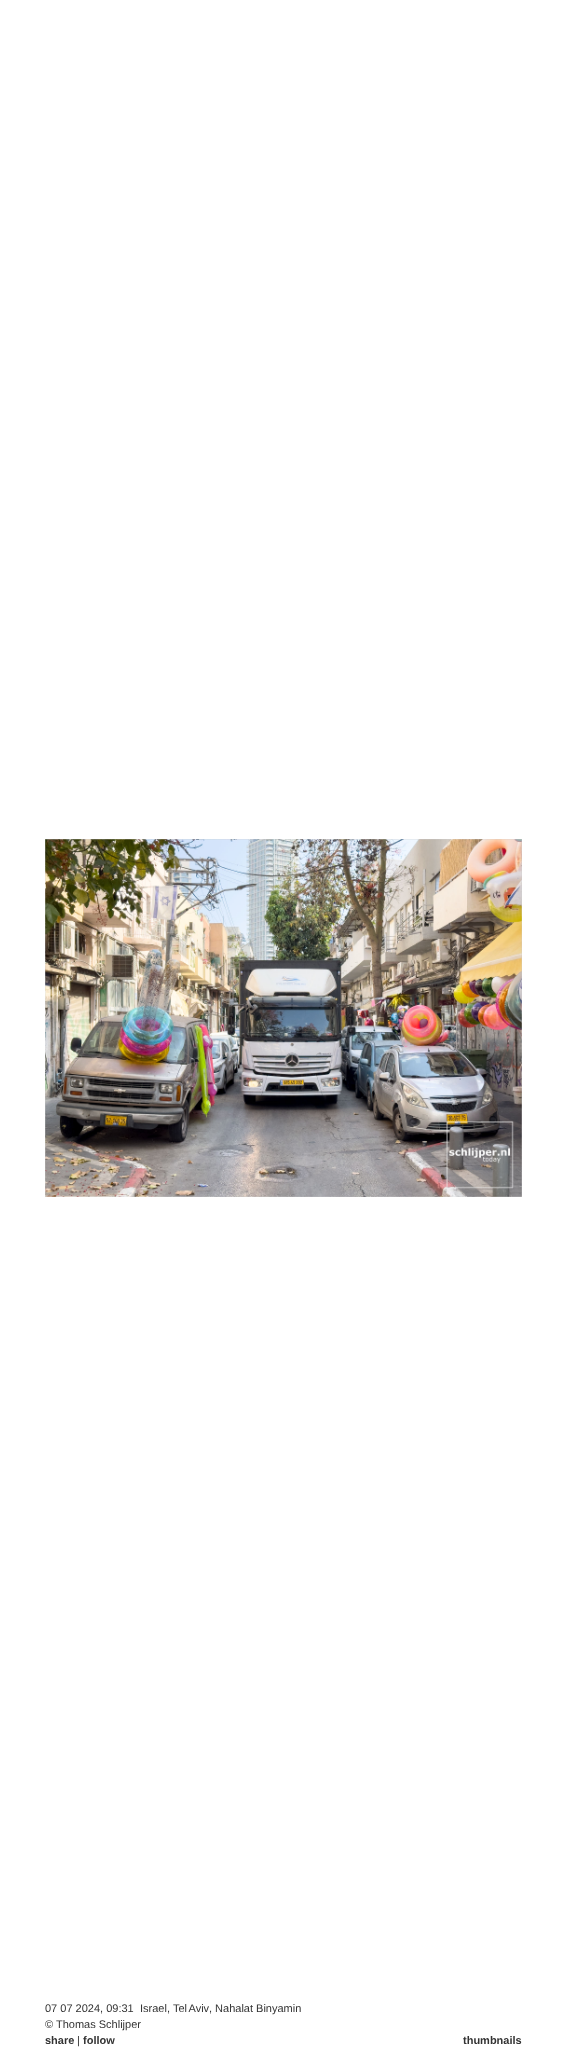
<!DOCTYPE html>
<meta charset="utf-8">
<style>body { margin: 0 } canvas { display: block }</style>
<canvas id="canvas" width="567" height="2063"></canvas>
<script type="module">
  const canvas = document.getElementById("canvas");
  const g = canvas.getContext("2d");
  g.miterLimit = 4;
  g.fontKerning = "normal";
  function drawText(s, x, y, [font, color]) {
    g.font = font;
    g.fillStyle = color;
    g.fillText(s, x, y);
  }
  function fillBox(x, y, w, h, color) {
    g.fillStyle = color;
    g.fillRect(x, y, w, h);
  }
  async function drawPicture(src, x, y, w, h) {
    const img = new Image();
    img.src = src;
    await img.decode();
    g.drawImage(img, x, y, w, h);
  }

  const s1 = ["11px Liberation Sans", "#333333"];
  const s2 = ["bold 11px Liberation Sans", "#333333"];

  fillBox(0, 0, 567, 2063, "#FFFFFF");
  await drawPicture("pic1.png", 45, 839, 477, 358);
  drawText("07 07 2024, 09:31", 45, 2012, s1);
  drawText("Israel,", 140, 2012, s1);
  g.wordSpacing = "-1px";
  drawText("Tel Aviv", 173, 2012, s1);
  g.wordSpacing = "0px";
  drawText(", Nahalat Binyamin", 209, 2012, s1);
  drawText("© Thomas Schlijper", 45, 2028, s1);
  drawText("share", 45, 2044, s2);
  drawText("|", 77, 2044, s1);
  drawText("follow", 83, 2044, s2);
  drawText("thumbnails", 463, 2044, s2);
</script>
